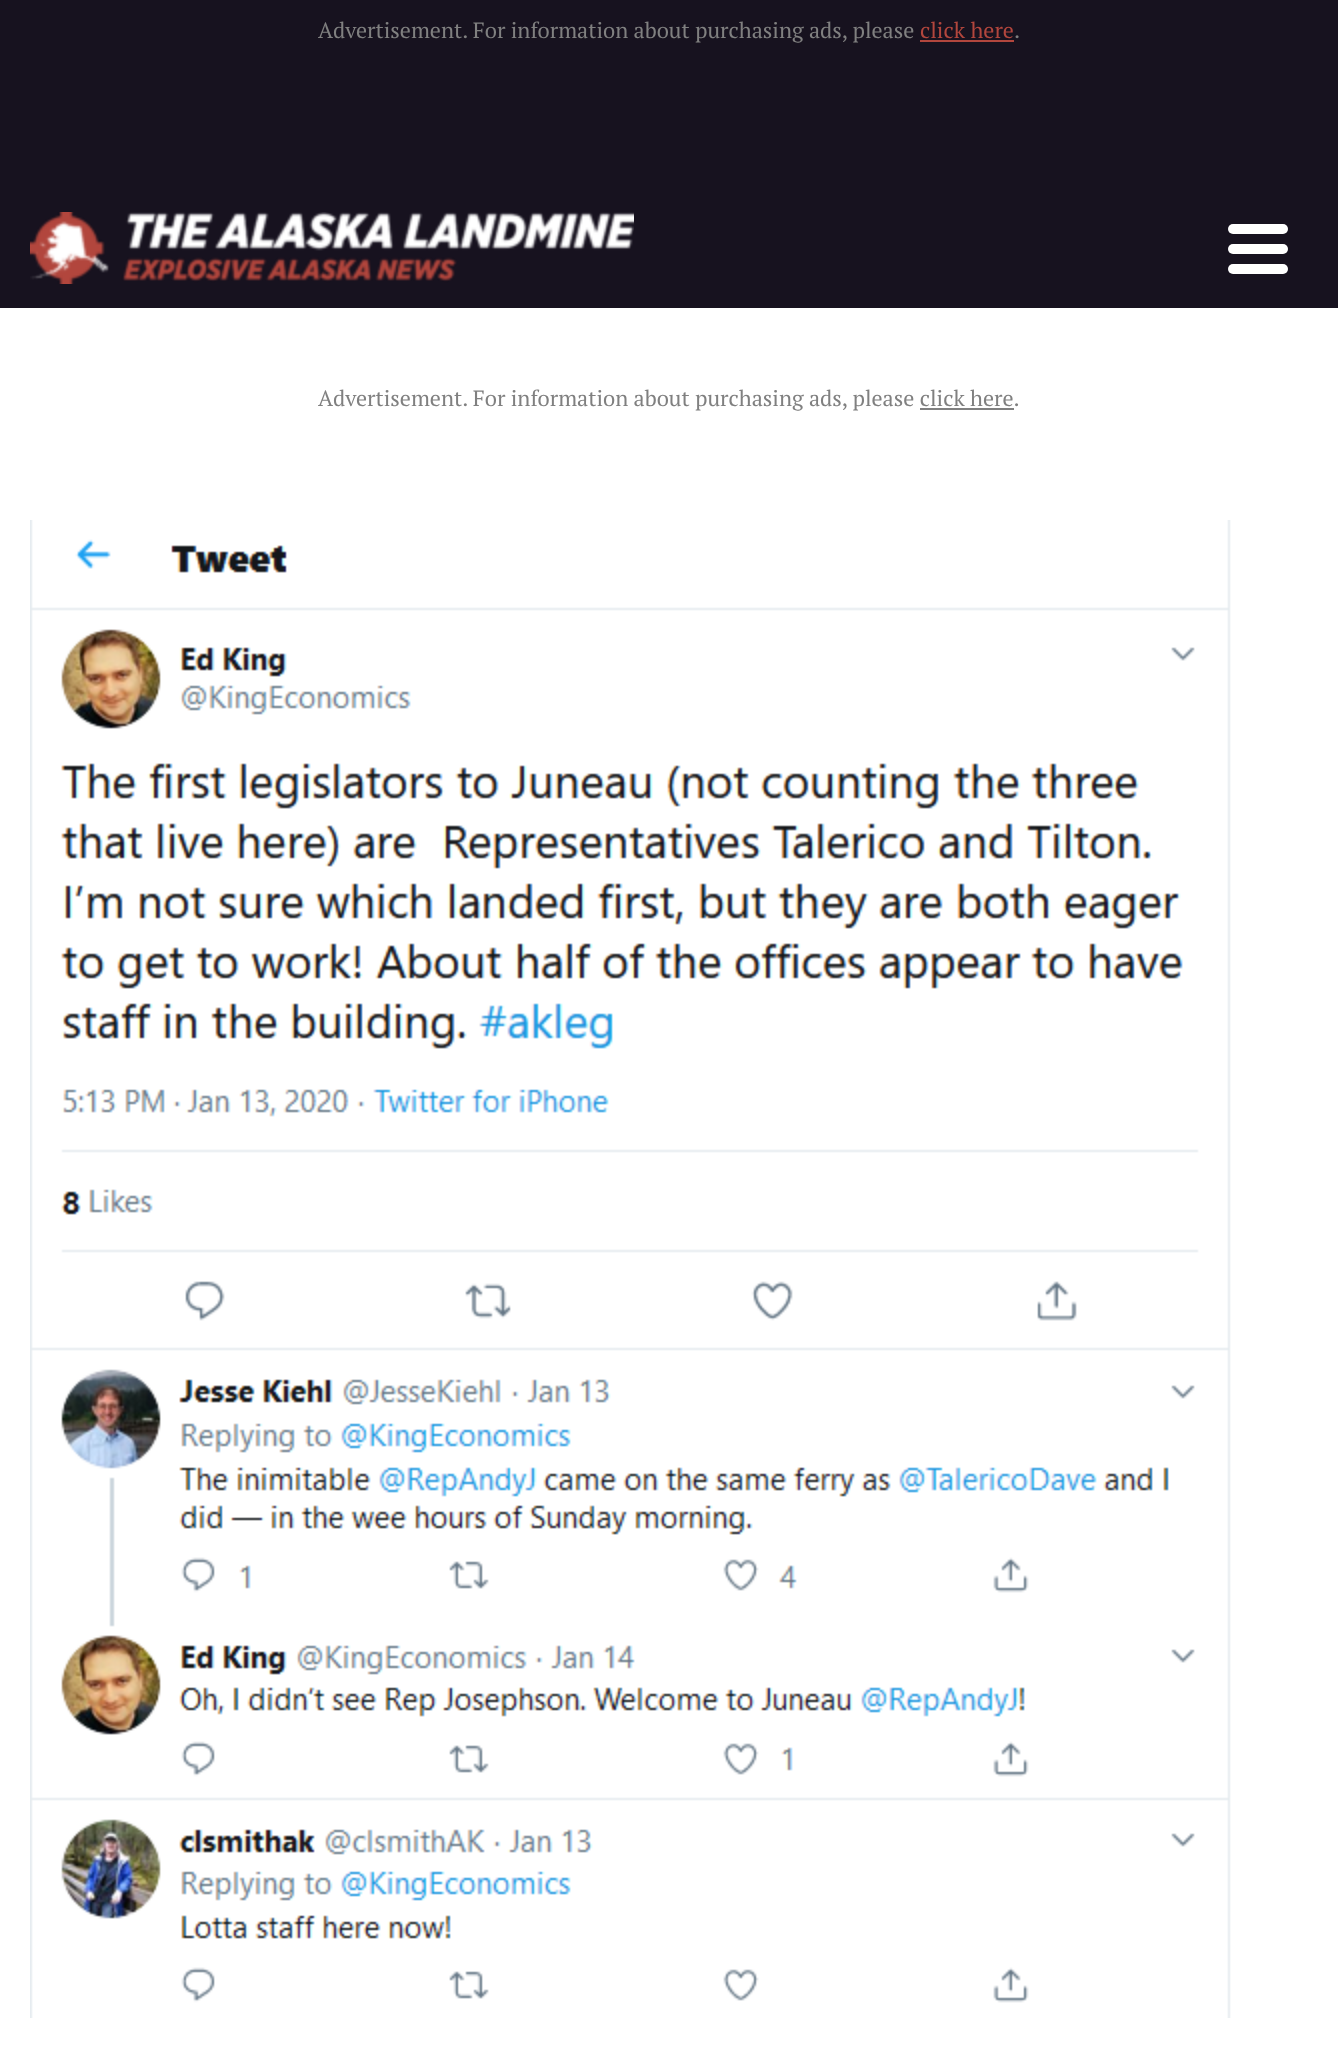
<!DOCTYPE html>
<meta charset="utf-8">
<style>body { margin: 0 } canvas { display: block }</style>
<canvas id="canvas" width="1338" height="2056"></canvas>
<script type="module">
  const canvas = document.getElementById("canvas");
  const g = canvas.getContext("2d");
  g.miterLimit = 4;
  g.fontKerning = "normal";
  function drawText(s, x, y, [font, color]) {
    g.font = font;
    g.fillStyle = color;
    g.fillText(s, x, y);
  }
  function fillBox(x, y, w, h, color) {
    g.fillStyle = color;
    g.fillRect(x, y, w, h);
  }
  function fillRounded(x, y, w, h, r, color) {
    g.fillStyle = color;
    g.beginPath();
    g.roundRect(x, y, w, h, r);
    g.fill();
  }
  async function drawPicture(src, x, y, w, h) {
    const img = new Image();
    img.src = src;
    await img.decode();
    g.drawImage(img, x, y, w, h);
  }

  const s1 = ["22px PT Serif", "#808080"];
  const s2 = ["22px PT Serif", "#B2463D"];

  fillBox(0, 0, 1338, 2056, "#17121F");
  drawText("Advertisement. For information about purchasing ads, please", 318, 38, s1);
  drawText("click here", 920, 38, s2);
  fillBox(920, 40, 94, 2, "#B2463D");
  drawText(".", 1014, 38, s1);
  await drawPicture("pic1.png", 30, 212, 604, 72);
  fillRounded(1228, 224, 60, 10, 5, "#FFFFFF");
  fillRounded(1228, 244, 60, 10, 5, "#FFFFFF");
  fillRounded(1228, 264, 60, 10, 5, "#FFFFFF");
  fillBox(0, 308, 1338, 1748, "#FFFFFF");
  drawText("Advertisement. For information about purchasing ads, please click here.", 318, 406, s1);
  fillBox(920, 408, 94, 2, "#808080");
  await drawPicture("pic2.png", 30, 520, 1201, 1498);
</script>
